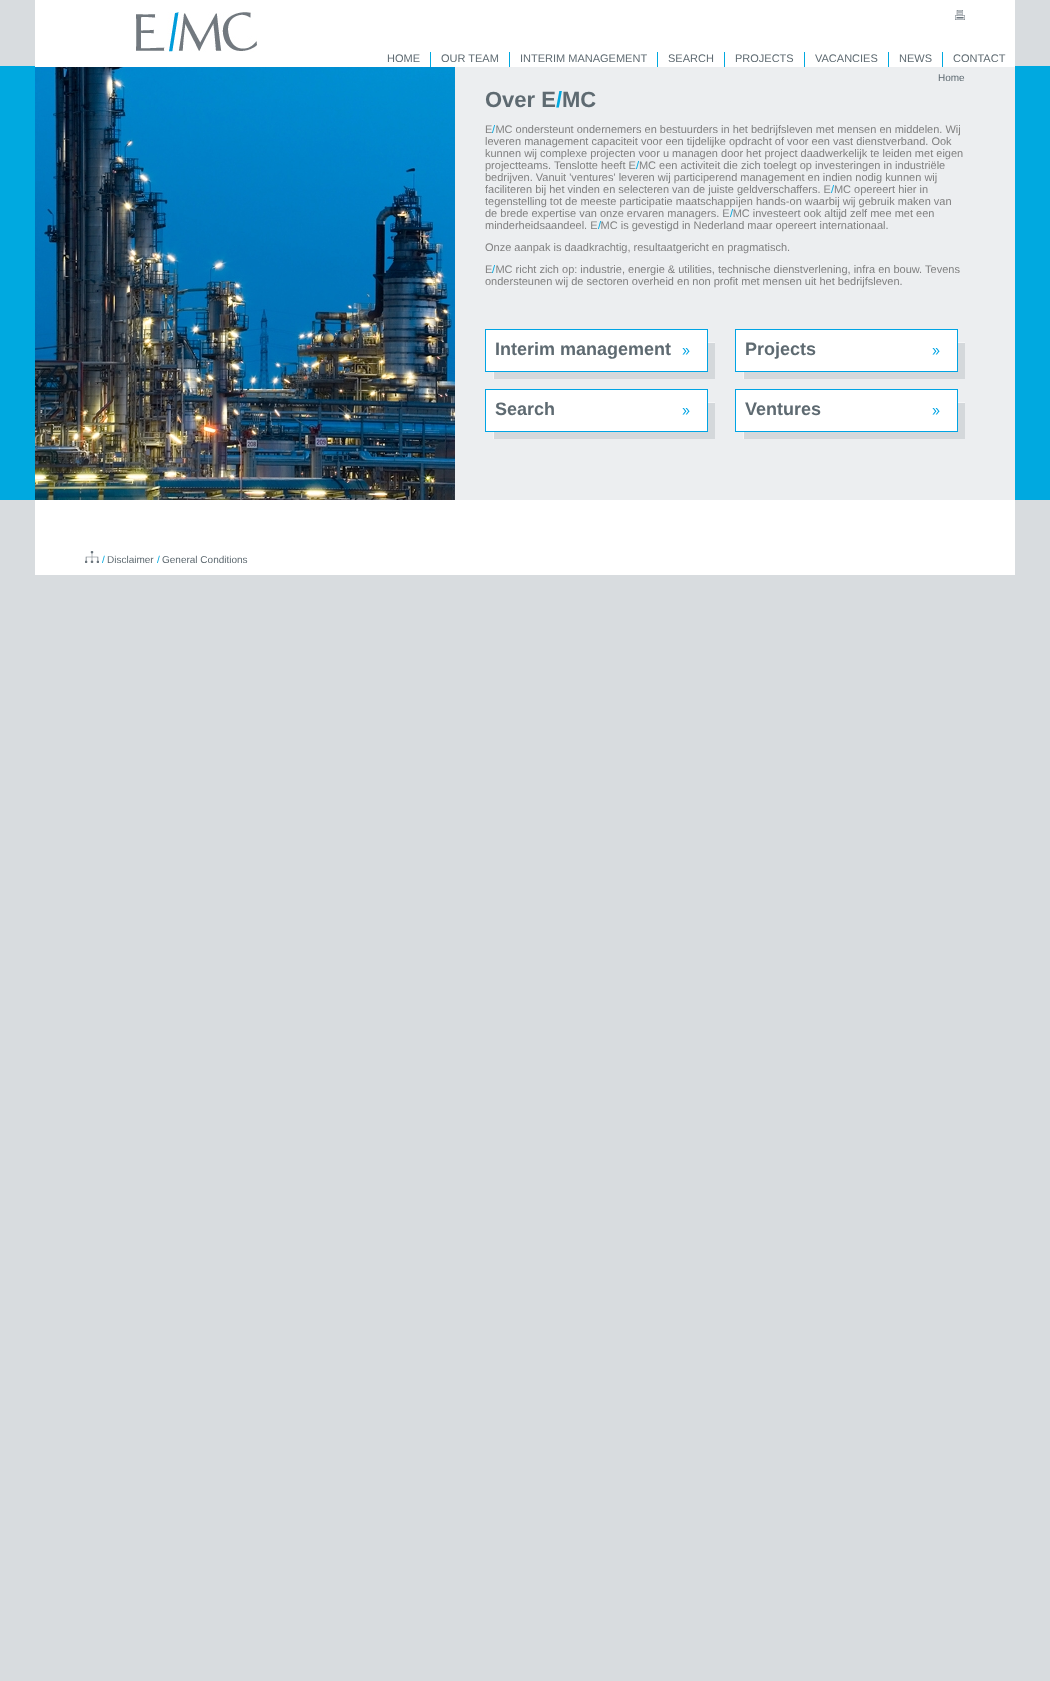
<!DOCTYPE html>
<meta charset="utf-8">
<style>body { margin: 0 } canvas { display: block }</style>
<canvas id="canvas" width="1050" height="1681"></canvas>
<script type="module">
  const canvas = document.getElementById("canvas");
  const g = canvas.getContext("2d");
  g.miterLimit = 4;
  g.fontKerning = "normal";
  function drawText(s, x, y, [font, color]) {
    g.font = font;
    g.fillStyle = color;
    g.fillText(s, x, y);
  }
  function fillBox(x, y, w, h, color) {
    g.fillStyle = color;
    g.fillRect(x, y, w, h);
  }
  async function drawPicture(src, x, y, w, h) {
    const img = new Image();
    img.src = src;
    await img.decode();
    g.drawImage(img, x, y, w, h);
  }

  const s1 = ["11px Liberation Sans", "#5E6A71"];
  const s2 = ["10px Liberation Sans", "#5E6A71"];
  const s3 = ["bold 22px Liberation Sans", "#5E6A71"];
  const s4 = ["bold 22px Liberation Sans", "#00A9E0"];
  const s5 = ["11px Liberation Sans", "#808080"];
  const s6 = ["11px Liberation Sans", "#00A9E0"];
  const s7 = ["bold 18px Liberation Sans", "#5E6A71"];
  const s8 = ["10px Liberation Sans", "#00A9E0"];

  fillBox(0, 0, 1050, 1681, "#D8DCDF");
  fillBox(0, 66, 1050, 434, "#00A9E0");
  fillBox(35, 0, 980, 575, "#FFFFFF");
  await drawPicture("pic1.png", 136, 12, 121, 40);
  await drawPicture("pic2.png", 955, 10, 10, 10);
  drawText("HOME", 387, 62, s1);
  fillBox(430, 52, 1, 15, "#00A9E0");
  drawText("OUR TEAM", 441, 62, s1);
  fillBox(509, 52, 1, 15, "#00A9E0");
  drawText("INTERIM MANAGEMENT", 520, 62, s1);
  fillBox(657, 52, 1, 15, "#00A9E0");
  drawText("SEARCH", 668, 62, s1);
  fillBox(724, 52, 1, 15, "#00A9E0");
  drawText("PROJECTS", 735, 62, s1);
  fillBox(804, 52, 1, 15, "#00A9E0");
  drawText("VACANCIES", 815, 62, s1);
  fillBox(888, 52, 1, 15, "#00A9E0");
  drawText("NEWS", 899, 62, s1);
  fillBox(942, 52, 1, 15, "#00A9E0");
  drawText("CONTACT", 953, 62, s1);
  await drawPicture("pic3.png", 35, 67, 420, 433);
  fillBox(455, 67, 560, 433, "#ECEEF0");
  drawText("Home", 938, 81, s2);
  drawText("Over E MC", 485, 107, s3);
  drawText("/", 556, 107, s4);
  drawText("E MC ondersteunt ondernemers en bestuurders in het bedrijfsleven met mensen en middelen. Wij", 485, 133, s5);
  drawText("/", 492, 133, s6);
  drawText("leveren management capaciteit voor een tijdelijke opdracht of voor een vast dienstverband. Ook", 485, 145, s5);
  drawText("kunnen wij complexe projecten voor u managen door het project daadwerkelijk te leiden met eigen", 485, 157, s5);
  drawText("projectteams. Tenslotte heeft E MC een activiteit die zich toelegt op investeringen in industriële", 485, 169, s5);
  drawText("/", 636, 169, s6);
  drawText("bedrijven. Vanuit 'ventures' leveren wij participerend management en indien nodig kunnen wij", 485, 181, s5);
  drawText("faciliteren bij het vinden en selecteren van de juiste geldverschaffers. E MC opereert hier in", 485, 193, s5);
  drawText("/", 831, 193, s6);
  drawText("tegenstelling tot de meeste participatie maatschappijen hands-on waarbij wij gebruik maken van", 485, 205, s5);
  drawText("de brede expertise van onze ervaren managers. E MC investeert ook altijd zelf mee met een", 485, 217, s5);
  drawText("/", 730, 217, s6);
  drawText("minderheidsaandeel. E MC is gevestigd in Nederland maar opereert internationaal.", 485, 229, s5);
  drawText("/", 598, 229, s6);
  drawText("Onze aanpak is daadkrachtig, resultaatgericht en pragmatisch.", 485, 251, s5);
  drawText("E MC richt zich op: industrie, energie & utilities, technische dienstverlening, infra en bouw. Tevens", 485, 273, s5);
  drawText("/", 492, 273, s6);
  drawText("ondersteunen wij de sectoren overheid en non profit met mensen uit het bedrijfsleven.", 485, 285, s5);
  await drawPicture("pic4.png", 485, 329, 230, 50);
  drawText("Interim management", 495, 355, s7);
  await drawPicture("pic4.png", 735, 329, 230, 50);
  drawText("Projects", 745, 355, s7);
  await drawPicture("pic4.png", 485, 389, 230, 50);
  drawText("Search", 495, 415, s7);
  await drawPicture("pic4.png", 735, 389, 230, 50);
  drawText("Ventures", 745, 415, s7);
  await drawPicture("pic5.png", 85, 551, 14, 12);
  drawText("/", 102, 563, s8);
  drawText("Disclaimer", 107, 563, s2);
  drawText("/", 157, 563, s8);
  drawText("General Conditions", 162, 563, s2);
</script>
